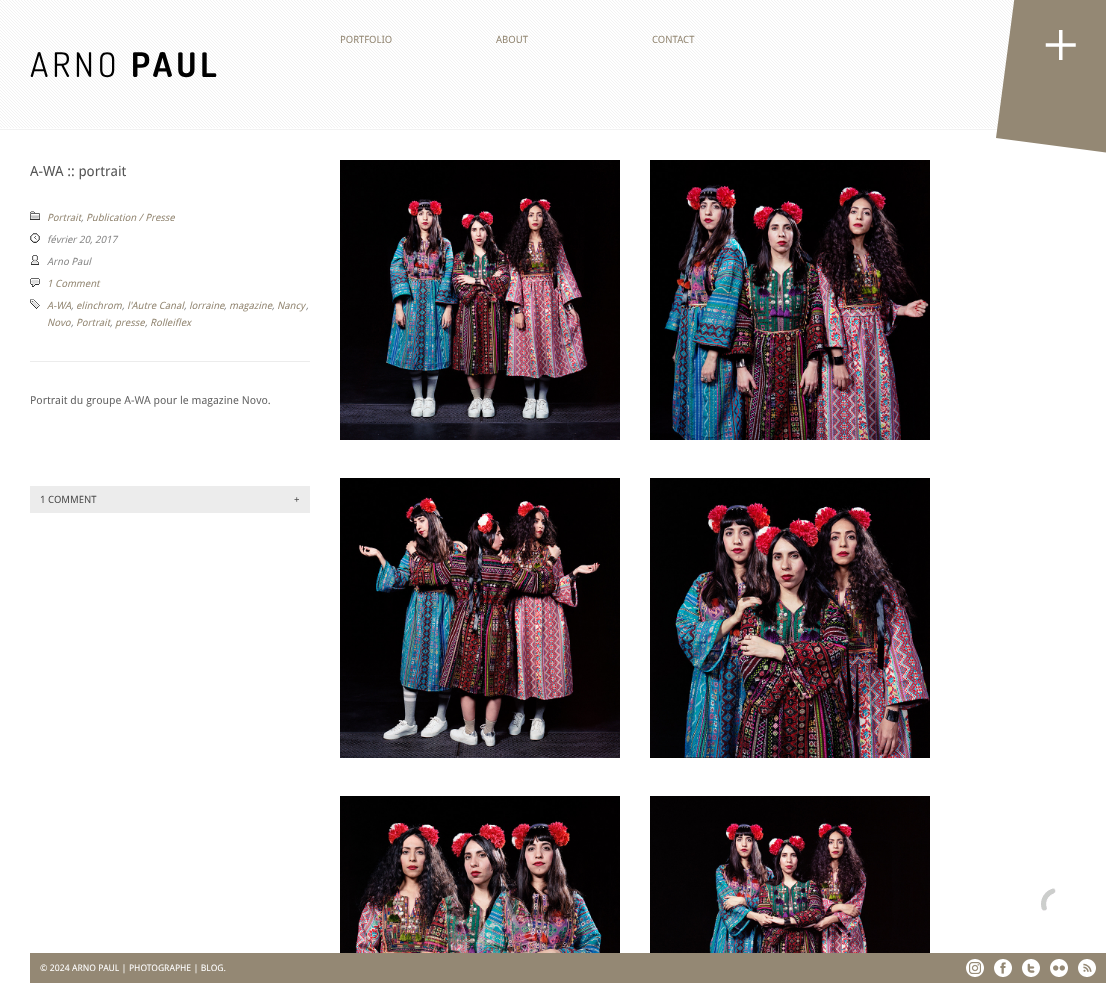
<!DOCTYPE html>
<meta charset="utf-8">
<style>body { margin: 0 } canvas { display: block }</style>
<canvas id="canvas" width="1106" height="983"></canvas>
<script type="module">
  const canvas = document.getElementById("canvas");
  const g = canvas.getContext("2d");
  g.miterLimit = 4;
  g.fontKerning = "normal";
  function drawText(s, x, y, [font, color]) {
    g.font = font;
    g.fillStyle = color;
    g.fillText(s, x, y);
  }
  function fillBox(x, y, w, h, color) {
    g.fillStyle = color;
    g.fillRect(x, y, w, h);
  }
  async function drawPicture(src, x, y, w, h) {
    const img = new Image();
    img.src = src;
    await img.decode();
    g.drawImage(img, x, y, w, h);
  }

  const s1 = ["10px Droid Sans", "#948874"];
  const s2 = ["34px Dosis", "#000000"];
  const s3 = ["bold 34px Dosis", "#000000"];
  const s4 = ["14px Droid Sans", "#555555"];
  const s5 = ["italic 10px Droid Sans", "#948874"];
  const s6 = ["italic 10px Droid Sans", "#888888"];
  const s7 = ["11px Droid Sans", "#666666"];
  const s8 = ["10px Droid Sans", "#4C4C4C"];
  const s9 = ["9px Droid Sans", "#FFFFFF"];

  fillBox(0, 0, 1106, 983, "#FFFFFF");
  fillBox(0, 129, 998, 1, "#F2F2F2");
  await drawPicture("pic1.png", 0, 0, 1015, 128);
  drawText("PORTFOLIO", 340, 43, s1);
  drawText("ABOUT", 496, 43, s1);
  drawText("CONTACT", 652, 43, s1);
  g.letterSpacing = "4px";
  drawText("ARNO", 30, 77, s2);
  drawText("PAUL", 131, 77, s3);
  g.fillStyle = "#948874";
  g.beginPath();
  g.moveTo(1038, -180);
  g.lineTo(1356, -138);
  g.lineTo(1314, 180);
  g.lineTo(996, 138);
  g.closePath();
  g.fill();
  await drawPicture("pic2.png", 1045, 30, 31, 30);
  g.letterSpacing = "0px";
  drawText("A-WA :: portrait", 30, 176, s4);
  fillBox(30, 361, 280, 1, "#ECECEC");
  await drawPicture("pic3.png", 30, 211, 10, 9);
  drawText("Portrait", 47, 221, s5);
  drawText("Publication / Presse", 86, 221, s5);
  drawText(",", 81, 221, s6);
  await drawPicture("pic4.png", 30, 233, 10, 10);
  drawText("février 20, 2017", 47, 243, s6);
  await drawPicture("pic5.png", 31, 255, 8, 10);
  drawText("Arno Paul", 47, 265, s6);
  await drawPicture("pic6.png", 30, 278, 10, 9);
  drawText("1 Comment", 47, 287, s5);
  await drawPicture("pic7.png", 30, 299, 10, 10);
  drawText("A-WA", 47, 309, s5);
  drawText(",", 71, 309, s6);
  drawText("elinchrom", 76, 309, s5);
  drawText(",", 122, 309, s6);
  drawText("l'Autre Canal", 127, 309, s5);
  drawText("lorraine", 189, 309, s5);
  drawText("magazine", 229, 309, s5);
  drawText("Nancy", 277, 309, s5);
  drawText(",", 184, 309, s6);
  drawText(",", 224, 309, s6);
  drawText(",", 272, 309, s6);
  drawText(",", 306, 309, s6);
  drawText("Novo", 47, 326, s5);
  drawText(",", 71, 326, s6);
  drawText("Portrait", 76, 326, s5);
  drawText("presse", 115, 326, s5);
  drawText("Rolleiflex", 150, 326, s5);
  drawText(",", 110, 326, s6);
  drawText(",", 145, 326, s6);
  drawText("Portrait du groupe A-WA pour le magazine Novo.", 30, 404, s7);
  fillBox(30, 486, 280, 27, "#ECECEC");
  drawText("1 COMMENT", 40, 503, s8);
  drawText("+", 294, 503, s8);
  await drawPicture("pic8.png", 340, 160, 280, 280);
  await drawPicture("pic9.png", 650, 160, 280, 280);
  await drawPicture("pic10.png", 340, 478, 280, 280);
  await drawPicture("pic11.png", 650, 478, 280, 280);
  await drawPicture("pic12.png", 340, 796, 280, 157);
  await drawPicture("pic13.png", 650, 796, 280, 157);
  await drawPicture("pic14.png", 1041, 888, 15, 23);
  fillBox(30, 953, 1076, 30, "#948874");
  drawText("© 2024 ARNO PAUL | PHOTOGRAPHE | BLOG.", 40, 971, s9);
  await drawPicture("pic15.png", 966, 959, 18, 18);
  await drawPicture("pic16.png", 994, 959, 18, 18);
  await drawPicture("pic17.png", 1022, 959, 18, 18);
  await drawPicture("pic18.png", 1050, 959, 18, 18);
  await drawPicture("pic19.png", 1078, 959, 18, 18);
</script>
